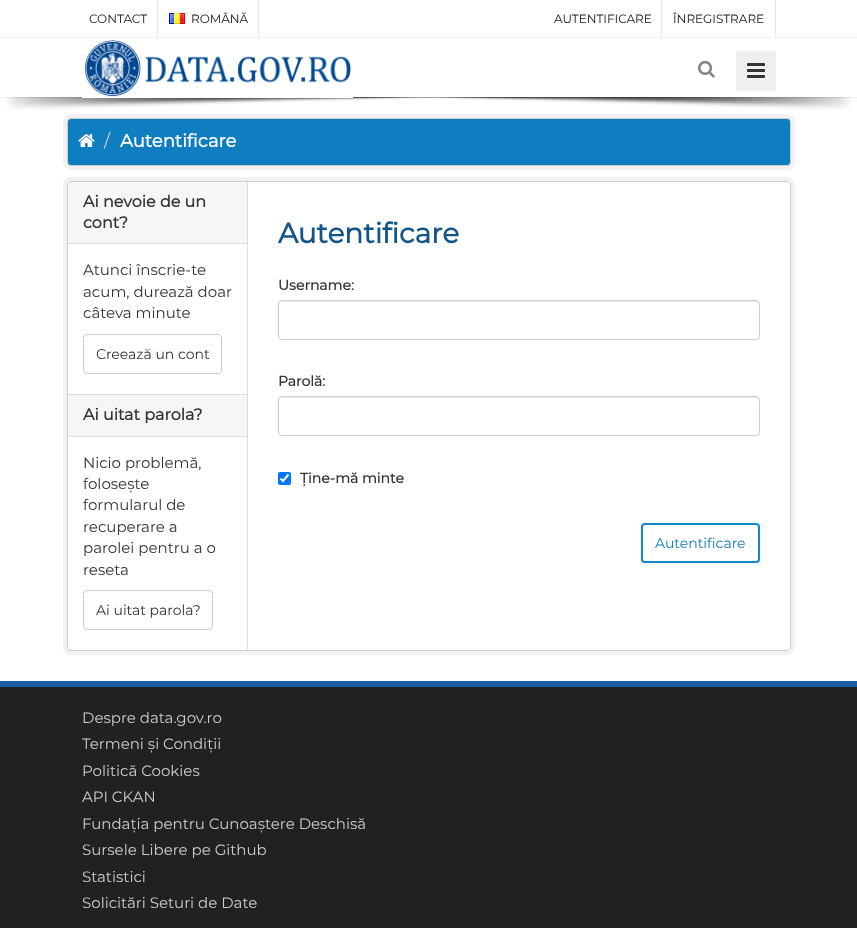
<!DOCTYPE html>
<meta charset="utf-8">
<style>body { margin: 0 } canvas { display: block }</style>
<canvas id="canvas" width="857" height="928"></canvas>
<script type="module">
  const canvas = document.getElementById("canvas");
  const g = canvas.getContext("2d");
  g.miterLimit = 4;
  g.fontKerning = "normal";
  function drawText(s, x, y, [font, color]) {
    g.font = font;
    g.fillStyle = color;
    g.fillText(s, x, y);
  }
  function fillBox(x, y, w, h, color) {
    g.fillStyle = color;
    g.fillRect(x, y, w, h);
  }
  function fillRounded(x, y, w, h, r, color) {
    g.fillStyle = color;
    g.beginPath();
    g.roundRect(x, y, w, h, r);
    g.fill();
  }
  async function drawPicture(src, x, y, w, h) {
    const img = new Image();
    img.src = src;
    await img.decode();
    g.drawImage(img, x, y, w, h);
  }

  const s1 = ["100 12px Montserrat", "#151515"];
  const s2 = ["100 18px Montserrat", "#CCCCCC"];
  const s3 = ["bold 18px Montserrat", "#FFFFFF"];
  const s4 = ["bold 16px Montserrat", "#333333"];
  const s5 = ["100 15px Montserrat", "#333333"];
  const s6 = ["100 14px Montserrat", "#333333"];
  const s7 = ["bold 28px Montserrat", "#135589"];
  const s8 = ["bold 14px Montserrat", "#333333"];
  const s9 = ["100 14px Montserrat", "#0E7EC1"];
  const s10 = ["100 15px Montserrat", "#CCCCCC"];

  fillBox(0, 0, 857, 928, "#FFFFFF");
  fillBox(0, 37, 857, 1, "#F2F2F2");
  fillBox(157, 0, 1, 37, "#E6E6E6");
  drawText("CONTACT", 89, 23, s1);
  fillBox(258, 0, 1, 37, "#E6E6E6");
  await drawPicture("pic1.png", 169, 13, 16, 11);
  drawText("ROMÂNĂ", 191, 23, s1);
  fillBox(661, 0, 1, 37, "#E6E6E6");
  drawText("AUTENTIFICARE", 554, 23, s1);
  fillBox(775, 0, 1, 37, "#E6E6E6");
  drawText("ÎNREGISTRARE", 673, 23, s1);
  fillBox(0, 97, 857, 1, "#F2F2F2");
  await drawPicture("pic5.png", 6, 97, 846, 13);
  await drawPicture("pic2.png", 82, 40, 271, 58);
  await drawPicture("pic3.png", 698, 60, 17, 18);
  fillBox(736, 51, 40, 40, "#EFEFEF");
  await drawPicture("pic4.png", 747, 63, 18, 15);
  g.beginPath();
  g.roundRect(65, 116, 728, 52, 6);
  g.strokeStyle = "#F2F2F2";
  g.lineWidth = 4;
  g.stroke();
  g.fillStyle = "#0E7EC1";
  g.beginPath();
  g.roundRect(67.5, 118.5, 723, 47, 3.5);
  g.fill();
  g.strokeStyle = "#CCCCCC";
  g.lineWidth = 1;
  g.stroke();
  await drawPicture("pic6.png", 78, 134, 17, 13);
  drawText("/", 104, 147, s2);
  drawText("Autentificare", 120, 147, s3);
  g.beginPath();
  g.roundRect(65, 179, 728, 474, 6);
  g.strokeStyle = "#F2F2F2";
  g.lineWidth = 4;
  g.stroke();
  g.beginPath();
  g.roundRect(67.5, 181.5, 723, 469, 3.5);
  g.fill();
  g.strokeStyle = "#CCCCCC";
  g.lineWidth = 1;
  g.stroke();
  g.fillStyle = "#F6F6F6";
  g.beginPath();
  g.roundRect(68, 182, 179, 62, [3, 0, 0, 0]);
  g.fill();
  fillBox(68, 243, 179, 1, "#DDDDDD");
  drawText("Ai nevoie de un", 83, 207, s4);
  drawText("cont?", 83, 228, s4);
  drawText("Atunci înscrie-te", 83, 275, s5);
  drawText("acum, durează doar", 83, 297, s5);
  drawText("câteva minute", 83, 318, s5);
  g.beginPath();
  g.roundRect(83.5, 334.5, 138, 39, 3.5);
  g.stroke();
  drawText("Creează un cont", 96, 359, s6);
  fillBox(68, 395, 179, 41, "#F6F6F6");
  fillBox(68, 394, 179, 1, "#DDDDDD");
  fillBox(68, 436, 179, 1, "#DDDDDD");
  drawText("Ai uitat parola?", 83, 420, s4);
  drawText("Nicio problemă,", 83, 468, s5);
  drawText("folosește", 83, 489, s5);
  drawText("formularul de", 83, 510, s5);
  drawText("recuperare a", 83, 532, s5);
  drawText("parolei pentru a o", 83, 553, s5);
  drawText("reseta", 83, 575, s5);
  g.beginPath();
  g.roundRect(83.5, 590.5, 129, 39, 3.5);
  g.stroke();
  drawText("Ai uitat parola?", 96, 615, s6);
  fillBox(247, 182, 1, 468, "#DDDDDD");
  drawText("Autentificare", 278, 243, s7);
  drawText("Username:", 278, 290, s8);
  g.fillStyle = "#ECECEC";
  g.beginPath();
  g.moveTo(282, 302);
  g.lineTo(756, 302);
  g.bezierCurveTo(758, 302, 759, 303, 759, 305);
  g.lineTo(759, 303);
  g.lineTo(757, 301);
  g.lineTo(281, 301);
  g.bezierCurveTo(279, 301, 279, 303, 279, 305);
  g.bezierCurveTo(279, 303, 280, 302, 282, 302);
  g.closePath();
  g.fill();
  g.beginPath();
  g.roundRect(278.5, 300.5, 481, 39, 3.5);
  g.stroke();
  drawText("Parolă:", 278, 386, s8);
  g.fillStyle = "#ECECEC";
  g.beginPath();
  g.moveTo(282, 398);
  g.lineTo(756, 398);
  g.bezierCurveTo(758, 398, 759, 399, 759, 401);
  g.lineTo(759, 399);
  g.lineTo(757, 397);
  g.lineTo(281, 397);
  g.bezierCurveTo(279, 397, 279, 399, 279, 401);
  g.bezierCurveTo(279, 399, 280, 398, 282, 398);
  g.closePath();
  g.fill();
  g.beginPath();
  g.roundRect(278.5, 396.5, 481, 39, 3.5);
  g.stroke();
  fillRounded(278, 472, 13, 13, 2, "#0075FF");
  g.beginPath();
  g.moveTo(280.5, 478.5);
  g.lineTo(283, 481);
  g.lineTo(288.5, 474.5);
  g.strokeStyle = "#FFFFFF";
  g.lineWidth = 2.1;
  g.stroke();
  drawText("Ține-mă minte", 300, 483, s8);
  g.save();
  g.beginPath();
  g.rect(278, 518, 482, 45);
  g.clip();
  g.fillStyle = "rgba(0, 0, 0, 0.15)";
  g.filter = "blur(1px)";
  g.beginPath();
  g.roundRect(641, 525, 119, 40, 4);
  g.fill();
  g.filter = "none";
  g.restore();
  g.fillStyle = "#FFFFFF";
  g.beginPath();
  g.roundRect(642, 524, 117, 38, 3);
  g.fill();
  g.strokeStyle = "#1089D2";
  g.lineWidth = 2;
  g.stroke();
  drawText("Autentificare", 655, 548, s9);
  fillBox(0, 687, 857, 241, "#212121");
  fillBox(0, 681, 857, 6, "#1E5EA9");
  drawText("Despre data.gov.ro", 82, 723, s10);
  drawText("Termeni și Condiții", 82, 749, s10);
  drawText("Politică Cookies", 82, 776, s10);
  drawText("API CKAN", 82, 802, s10);
  drawText("Fundația pentru Cunoaștere Deschisă", 82, 829, s10);
  drawText("Sursele Libere pe Github", 82, 855, s10);
  drawText("Statistici", 82, 882, s10);
  drawText("Solicitări Seturi de Date", 82, 908, s10);
</script>
